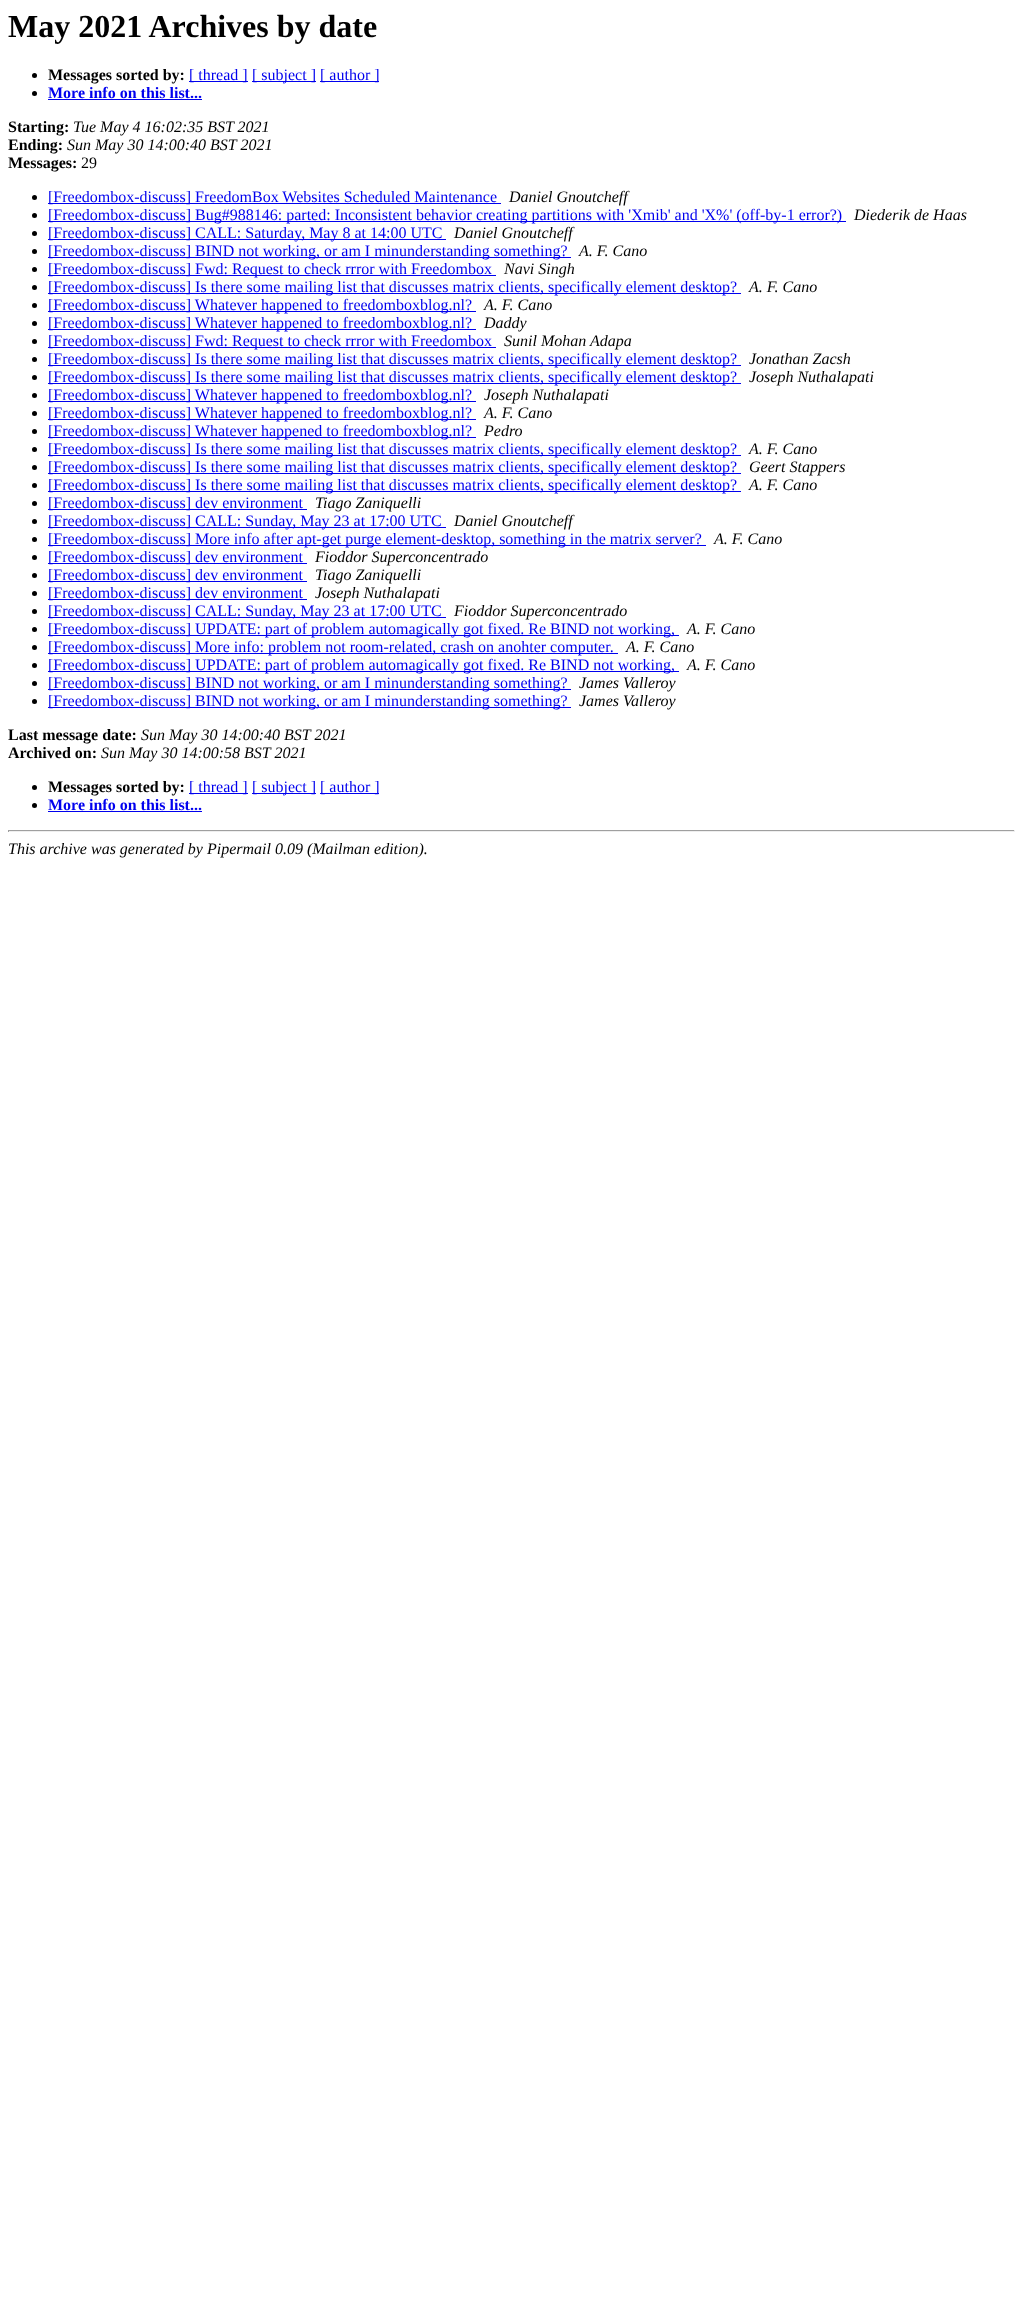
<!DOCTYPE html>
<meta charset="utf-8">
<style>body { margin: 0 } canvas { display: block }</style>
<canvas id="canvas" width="1023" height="2311"></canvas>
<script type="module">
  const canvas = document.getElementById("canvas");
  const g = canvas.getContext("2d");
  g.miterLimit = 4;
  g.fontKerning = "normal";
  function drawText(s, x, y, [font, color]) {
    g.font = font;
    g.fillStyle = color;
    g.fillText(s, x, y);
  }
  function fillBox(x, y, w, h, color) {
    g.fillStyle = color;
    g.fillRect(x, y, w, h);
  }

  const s1 = ["bold 32px Liberation Serif", "#000000"];
  const s2 = ["bold 16px Liberation Serif", "#000000"];
  const s3 = ["16px Liberation Serif", "#0000EE"];
  const s4 = ["bold 16px Liberation Serif", "#0000EE"];
  const s5 = ["italic 16px Liberation Serif", "#000000"];
  const s6 = ["16px Liberation Serif", "#000000"];

  fillBox(0, 0, 1023, 2311, "#FFFFFF");
  drawText("May 2021 Archives by date", 8, 37, s1);
  g.beginPath();
  g.arc(34.5, 75.5, 2.5, 0, Math.PI * 2);
  g.fill();
  drawText("Messages sorted by:", 48, 80, s2);
  fillBox(189, 81, 59, 1, "#0000EE");
  drawText("[ thread ]", 189, 80, s3);
  fillBox(252, 81, 64, 1, "#0000EE");
  drawText("[ subject ]", 252, 80, s3);
  fillBox(320, 81, 59, 1, "#0000EE");
  drawText("[ author ]", 320, 80, s3);
  g.fillStyle = "#000000";
  g.beginPath();
  g.arc(34.5, 93.5, 2.5, 0, Math.PI * 2);
  g.fill();
  drawText("More info on this list...", 48, 98, s4);
  fillBox(48, 99, 154, 1, "#0000EE");
  drawText("Starting:", 8, 132, s2);
  drawText("Tue May 4 16:02:35 BST 2021", 73, 132, s5);
  drawText("Ending:", 8, 150, s2);
  drawText("Sun May 30 14:00:40 BST 2021", 67, 150, s5);
  drawText("Messages:", 8, 168, s2);
  drawText("29", 81, 168, s6);
  g.beginPath();
  g.arc(34.5, 197.5, 2.5, 0, Math.PI * 2);
  g.fill();
  fillBox(48, 203, 453, 1, "#0000EE");
  drawText("[Freedombox-discuss] FreedomBox Websites Scheduled Maintenance", 48, 202, s3);
  drawText("Daniel Gnoutcheff", 509, 202, s5);
  g.beginPath();
  g.arc(34.5, 215.5, 2.5, 0, Math.PI * 2);
  g.fill();
  fillBox(48, 221, 798, 1, "#0000EE");
  drawText("[Freedombox-discuss] Bug#988146: parted: Inconsistent behavior creating partitions with 'Xmib' and 'X%' (off-by-1 error?)", 48, 220, s3);
  drawText("Diederik de Haas", 854, 220, s5);
  g.beginPath();
  g.arc(34.5, 233.5, 2.5, 0, Math.PI * 2);
  g.fill();
  fillBox(48, 239, 398, 1, "#0000EE");
  drawText("[Freedombox-discuss] CALL: Saturday, May 8 at 14:00 UTC", 48, 238, s3);
  drawText("Daniel Gnoutcheff", 454, 238, s5);
  g.beginPath();
  g.arc(34.5, 251.5, 2.5, 0, Math.PI * 2);
  g.fill();
  fillBox(48, 257, 523, 1, "#0000EE");
  drawText("[Freedombox-discuss] BIND not working, or am I minunderstanding something?", 48, 256, s3);
  drawText("A. F. Cano", 579, 256, s5);
  g.beginPath();
  g.arc(34.5, 269.5, 2.5, 0, Math.PI * 2);
  g.fill();
  fillBox(48, 275, 448, 1, "#0000EE");
  drawText("[Freedombox-discuss] Fwd: Request to check rrror with Freedombox", 48, 274, s3);
  drawText("Navi Singh", 504, 274, s5);
  g.beginPath();
  g.arc(34.5, 287.5, 2.5, 0, Math.PI * 2);
  g.fill();
  fillBox(48, 293, 693, 1, "#0000EE");
  drawText("[Freedombox-discuss] Is there some mailing list that discusses matrix clients, specifically element desktop?", 48, 292, s3);
  drawText("A. F. Cano", 749, 292, s5);
  g.beginPath();
  g.arc(34.5, 305.5, 2.5, 0, Math.PI * 2);
  g.fill();
  fillBox(48, 311, 428, 1, "#0000EE");
  drawText("[Freedombox-discuss] Whatever happened to freedomboxblog.nl?", 48, 310, s3);
  drawText("A. F. Cano", 484, 310, s5);
  g.beginPath();
  g.arc(34.5, 323.5, 2.5, 0, Math.PI * 2);
  g.fill();
  fillBox(48, 329, 428, 1, "#0000EE");
  drawText("[Freedombox-discuss] Whatever happened to freedomboxblog.nl?", 48, 328, s3);
  drawText("Daddy", 484, 328, s5);
  g.beginPath();
  g.arc(34.5, 341.5, 2.5, 0, Math.PI * 2);
  g.fill();
  fillBox(48, 347, 448, 1, "#0000EE");
  drawText("[Freedombox-discuss] Fwd: Request to check rrror with Freedombox", 48, 346, s3);
  drawText("Sunil Mohan Adapa", 504, 346, s5);
  g.beginPath();
  g.arc(34.5, 359.5, 2.5, 0, Math.PI * 2);
  g.fill();
  fillBox(48, 365, 693, 1, "#0000EE");
  drawText("[Freedombox-discuss] Is there some mailing list that discusses matrix clients, specifically element desktop?", 48, 364, s3);
  drawText("Jonathan Zacsh", 749, 364, s5);
  g.beginPath();
  g.arc(34.5, 377.5, 2.5, 0, Math.PI * 2);
  g.fill();
  fillBox(48, 383, 693, 1, "#0000EE");
  drawText("[Freedombox-discuss] Is there some mailing list that discusses matrix clients, specifically element desktop?", 48, 382, s3);
  drawText("Joseph Nuthalapati", 749, 382, s5);
  g.beginPath();
  g.arc(34.5, 395.5, 2.5, 0, Math.PI * 2);
  g.fill();
  fillBox(48, 401, 428, 1, "#0000EE");
  drawText("[Freedombox-discuss] Whatever happened to freedomboxblog.nl?", 48, 400, s3);
  drawText("Joseph Nuthalapati", 484, 400, s5);
  g.beginPath();
  g.arc(34.5, 413.5, 2.5, 0, Math.PI * 2);
  g.fill();
  fillBox(48, 419, 428, 1, "#0000EE");
  drawText("[Freedombox-discuss] Whatever happened to freedomboxblog.nl?", 48, 418, s3);
  drawText("A. F. Cano", 484, 418, s5);
  g.beginPath();
  g.arc(34.5, 431.5, 2.5, 0, Math.PI * 2);
  g.fill();
  fillBox(48, 437, 428, 1, "#0000EE");
  drawText("[Freedombox-discuss] Whatever happened to freedomboxblog.nl?", 48, 436, s3);
  drawText("Pedro", 484, 436, s5);
  g.beginPath();
  g.arc(34.5, 449.5, 2.5, 0, Math.PI * 2);
  g.fill();
  fillBox(48, 455, 693, 1, "#0000EE");
  drawText("[Freedombox-discuss] Is there some mailing list that discusses matrix clients, specifically element desktop?", 48, 454, s3);
  drawText("A. F. Cano", 749, 454, s5);
  g.beginPath();
  g.arc(34.5, 467.5, 2.5, 0, Math.PI * 2);
  g.fill();
  fillBox(48, 473, 693, 1, "#0000EE");
  drawText("[Freedombox-discuss] Is there some mailing list that discusses matrix clients, specifically element desktop?", 48, 472, s3);
  drawText("Geert Stappers", 749, 472, s5);
  g.beginPath();
  g.arc(34.5, 485.5, 2.5, 0, Math.PI * 2);
  g.fill();
  fillBox(48, 491, 693, 1, "#0000EE");
  drawText("[Freedombox-discuss] Is there some mailing list that discusses matrix clients, specifically element desktop?", 48, 490, s3);
  drawText("A. F. Cano", 749, 490, s5);
  g.beginPath();
  g.arc(34.5, 503.5, 2.5, 0, Math.PI * 2);
  g.fill();
  fillBox(48, 509, 259, 1, "#0000EE");
  drawText("[Freedombox-discuss] dev environment", 48, 508, s3);
  drawText("Tiago Zaniquelli", 315, 508, s5);
  g.beginPath();
  g.arc(34.5, 521.5, 2.5, 0, Math.PI * 2);
  g.fill();
  fillBox(48, 527, 398, 1, "#0000EE");
  drawText("[Freedombox-discuss] CALL: Sunday, May 23 at 17:00 UTC", 48, 526, s3);
  drawText("Daniel Gnoutcheff", 454, 526, s5);
  g.beginPath();
  g.arc(34.5, 539.5, 2.5, 0, Math.PI * 2);
  g.fill();
  fillBox(48, 545, 658, 1, "#0000EE");
  drawText("[Freedombox-discuss] More info after apt-get purge element-desktop, something in the matrix server?", 48, 544, s3);
  drawText("A. F. Cano", 714, 544, s5);
  g.beginPath();
  g.arc(34.5, 557.5, 2.5, 0, Math.PI * 2);
  g.fill();
  fillBox(48, 563, 259, 1, "#0000EE");
  drawText("[Freedombox-discuss] dev environment", 48, 562, s3);
  drawText("Fioddor Superconcentrado", 315, 562, s5);
  g.beginPath();
  g.arc(34.5, 575.5, 2.5, 0, Math.PI * 2);
  g.fill();
  fillBox(48, 581, 259, 1, "#0000EE");
  drawText("[Freedombox-discuss] dev environment", 48, 580, s3);
  drawText("Tiago Zaniquelli", 315, 580, s5);
  g.beginPath();
  g.arc(34.5, 593.5, 2.5, 0, Math.PI * 2);
  g.fill();
  fillBox(48, 599, 259, 1, "#0000EE");
  drawText("[Freedombox-discuss] dev environment", 48, 598, s3);
  drawText("Joseph Nuthalapati", 315, 598, s5);
  g.beginPath();
  g.arc(34.5, 611.5, 2.5, 0, Math.PI * 2);
  g.fill();
  fillBox(48, 617, 398, 1, "#0000EE");
  drawText("[Freedombox-discuss] CALL: Sunday, May 23 at 17:00 UTC", 48, 616, s3);
  drawText("Fioddor Superconcentrado", 454, 616, s5);
  g.beginPath();
  g.arc(34.5, 629.5, 2.5, 0, Math.PI * 2);
  g.fill();
  fillBox(48, 635, 631, 1, "#0000EE");
  drawText("[Freedombox-discuss] UPDATE: part of problem automagically got fixed. Re BIND not working,", 48, 634, s3);
  drawText("A. F. Cano", 687, 634, s5);
  g.beginPath();
  g.arc(34.5, 647.5, 2.5, 0, Math.PI * 2);
  g.fill();
  fillBox(48, 653, 570, 1, "#0000EE");
  drawText("[Freedombox-discuss] More info: problem not room-related, crash on anohter computer.", 48, 652, s3);
  drawText("A. F. Cano", 626, 652, s5);
  g.beginPath();
  g.arc(34.5, 665.5, 2.5, 0, Math.PI * 2);
  g.fill();
  fillBox(48, 671, 631, 1, "#0000EE");
  drawText("[Freedombox-discuss] UPDATE: part of problem automagically got fixed. Re BIND not working,", 48, 670, s3);
  drawText("A. F. Cano", 687, 670, s5);
  g.beginPath();
  g.arc(34.5, 683.5, 2.5, 0, Math.PI * 2);
  g.fill();
  fillBox(48, 689, 523, 1, "#0000EE");
  drawText("[Freedombox-discuss] BIND not working, or am I minunderstanding something?", 48, 688, s3);
  drawText("James Valleroy", 579, 688, s5);
  g.beginPath();
  g.arc(34.5, 701.5, 2.5, 0, Math.PI * 2);
  g.fill();
  fillBox(48, 707, 523, 1, "#0000EE");
  drawText("[Freedombox-discuss] BIND not working, or am I minunderstanding something?", 48, 706, s3);
  drawText("James Valleroy", 579, 706, s5);
  drawText("Last message date:", 8, 740, s2);
  drawText("Sun May 30 14:00:40 BST 2021", 141, 740, s5);
  drawText("Archived on:", 8, 758, s2);
  drawText("Sun May 30 14:00:58 BST 2021", 101, 758, s5);
  g.beginPath();
  g.arc(34.5, 787.5, 2.5, 0, Math.PI * 2);
  g.fill();
  drawText("Messages sorted by:", 48, 792, s2);
  fillBox(189, 793, 59, 1, "#0000EE");
  drawText("[ thread ]", 189, 792, s3);
  fillBox(252, 793, 64, 1, "#0000EE");
  drawText("[ subject ]", 252, 792, s3);
  fillBox(320, 793, 59, 1, "#0000EE");
  drawText("[ author ]", 320, 792, s3);
  g.fillStyle = "#000000";
  g.beginPath();
  g.arc(34.5, 805.5, 2.5, 0, Math.PI * 2);
  g.fill();
  drawText("More info on this list...", 48, 810, s4);
  fillBox(48, 811, 154, 1, "#0000EE");
  fillBox(8, 830, 1007, 1, "#9F9F9F");
  fillBox(1014, 830, 1, 2, "#EEEEEE");
  fillBox(8, 831, 1007, 1, "#EEEEEE");
  fillBox(8, 830, 1, 2, "#9F9F9F");
  drawText("This archive was generated by Pipermail 0.09 (Mailman edition).", 8, 854, s5);
</script>
